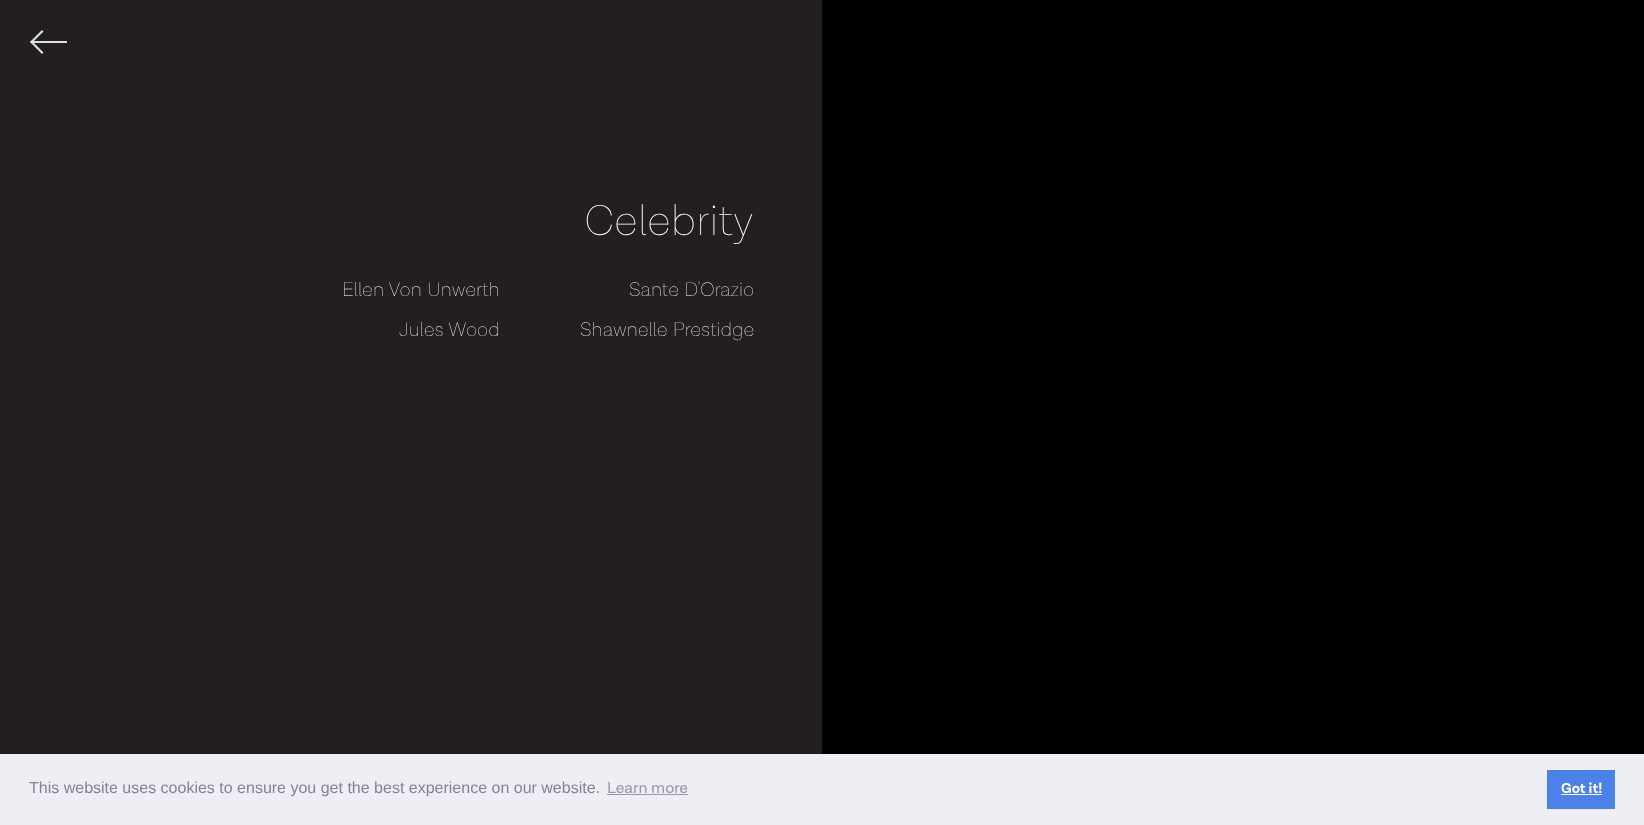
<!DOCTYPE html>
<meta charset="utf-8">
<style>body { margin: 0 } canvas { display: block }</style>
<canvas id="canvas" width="1644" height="825"></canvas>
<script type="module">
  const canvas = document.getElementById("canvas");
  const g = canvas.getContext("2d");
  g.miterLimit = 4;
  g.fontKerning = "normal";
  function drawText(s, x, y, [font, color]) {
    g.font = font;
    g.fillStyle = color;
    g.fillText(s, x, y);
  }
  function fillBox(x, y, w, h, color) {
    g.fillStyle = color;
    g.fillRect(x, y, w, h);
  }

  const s1 = ["100 44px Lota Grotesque", "#FFFFFF"];
  const s2 = ["100 20px Lota Grotesque", "#FFFFFF"];
  const s3 = ["16px Liberation Sans", "#838391"];
  const s4 = ["16px Lota Grotesque", "#9899A5"];
  const s5 = ["bold 14.5px Lota Grotesque", "#FFFFFF"];

  fillBox(0, 0, 1644, 825, "#231F20");
  fillBox(822, 0, 822, 754, "#000000");
  fillBox(32, 41, 35, 2, "#DCE0DF");
  g.beginPath();
  g.moveTo(43.5, 52.5);
  g.lineTo(42, 54);
  g.lineTo(30, 42);
  g.lineTo(31.5, 40.5);
  g.closePath();
  g.fill();
  g.beginPath();
  g.moveTo(42, 30);
  g.lineTo(43.5, 31.5);
  g.lineTo(31.5, 43.5);
  g.lineTo(30, 42);
  g.closePath();
  g.fill();
  drawText("Celebrity", 584, 235, s1);
  drawText("Ellen Von Unwerth", 342, 296, s2);
  drawText("Sante D'Orazio", 629, 296, s2);
  drawText("Jules Wood", 399, 336, s2);
  drawText("Shawnelle Prestidge", 580, 336, s2);
  fillBox(0, 754, 1644, 71, "#EDEFF5");
  drawText("This website uses cookies to ensure you get the best experience on our website.", 29, 793, s3);
  drawText("Learn more", 607, 793, s4);
  fillBox(607, 794, 81, 1, "#9899A5");
  fillBox(1547, 770, 68, 39, "#4B81E8");
  drawText("Got it!", 1561, 793, s5);
  fillBox(1561, 794, 41, 1, "#FFFFFF");
</script>
